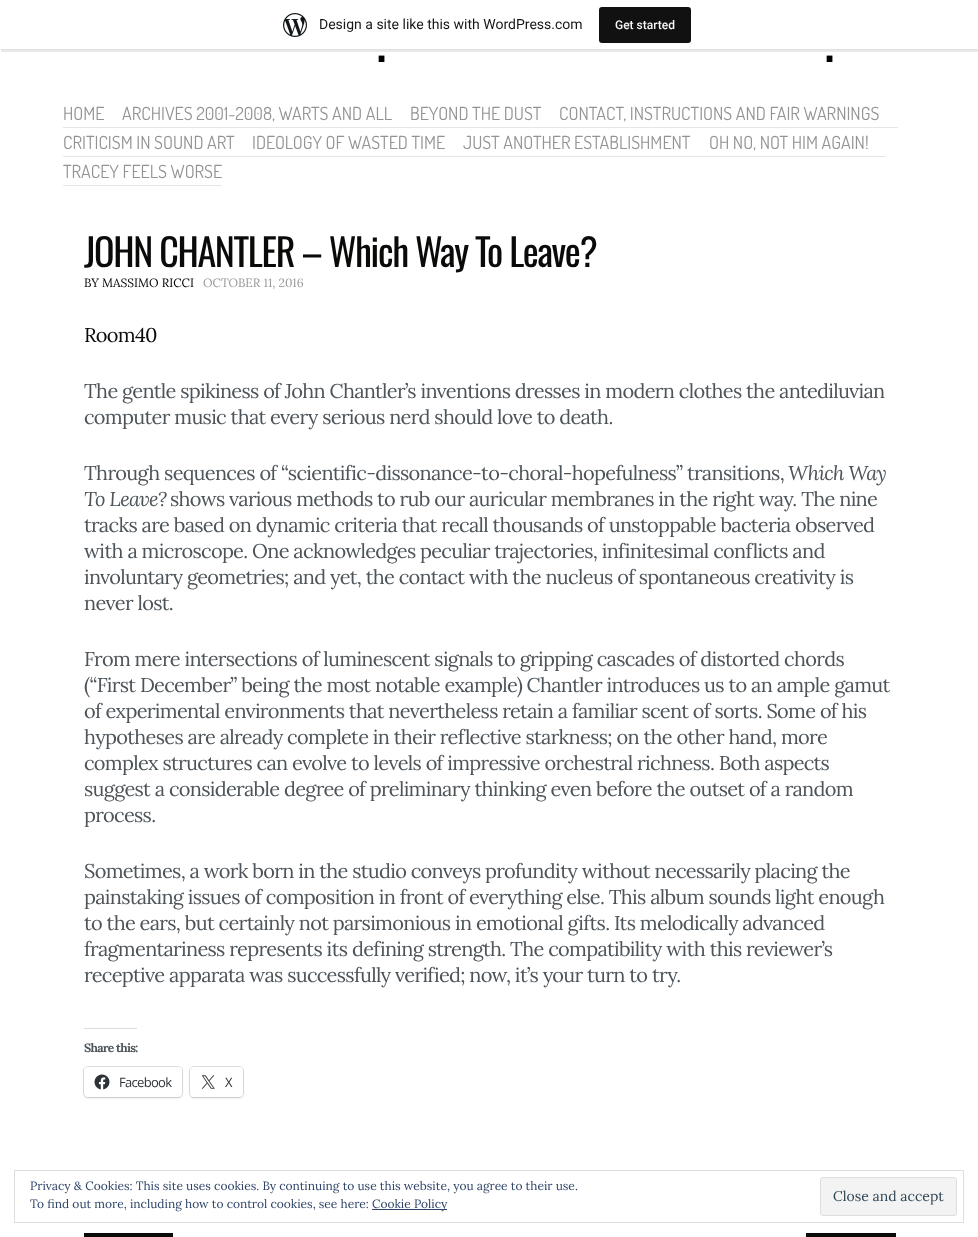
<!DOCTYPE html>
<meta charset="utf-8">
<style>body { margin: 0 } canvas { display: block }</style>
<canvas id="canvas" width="978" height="1237"></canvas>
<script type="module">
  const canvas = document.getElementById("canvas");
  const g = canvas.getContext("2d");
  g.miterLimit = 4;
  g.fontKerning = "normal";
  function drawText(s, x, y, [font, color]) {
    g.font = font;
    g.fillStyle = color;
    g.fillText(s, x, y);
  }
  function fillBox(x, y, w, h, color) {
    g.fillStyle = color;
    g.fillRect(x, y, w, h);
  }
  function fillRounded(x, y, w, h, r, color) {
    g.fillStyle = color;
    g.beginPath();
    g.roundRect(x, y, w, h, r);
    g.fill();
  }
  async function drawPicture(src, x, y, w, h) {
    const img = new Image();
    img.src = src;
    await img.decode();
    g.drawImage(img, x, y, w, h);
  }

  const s1 = ["14px Roboto", "#171717"];
  const s2 = ["500 12px Roboto", "#F6F7F7"];
  const s3 = ["54px Oswald", "#000000"];
  const s4 = ["18px Dosis", "#939393"];
  const s5 = ["38px Oswald", "#0A0A09"];
  const s6 = ["12px Lora", "#000000"];
  const s7 = ["12px Lora", "#999999"];
  const s8 = ["20px Lora", "#0A0A09"];
  const s9 = ["20px Lora", "#4D555A"];
  const s10 = ["italic 20px Lora", "#4D555A"];
  const s11 = ["bold 12px Lora", "#4D555A"];
  const s12 = ["13px Open Sans", "#2C3338"];
  const s13 = ["12px Lora", "#2E4467"];
  const s14 = ["14px Lora", "#2E4453"];

  fillBox(0, 0, 978, 1237, "#FFFFFF");
  g.fillStyle = "rgba(0, 0, 0, 0.05)";
  g.filter = "blur(1px)";
  g.beginPath();
  g.rect(0, 1, 978, 49);
  g.fill();
  g.filter = "none";
  g.fillStyle = "rgba(0, 0, 0, 0.08)";
  g.beginPath();
  g.moveTo(1, 49);
  g.lineTo(1, 52);
  g.lineTo(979, 52);
  g.lineTo(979, 3);
  g.lineTo(978, 3);
  g.lineTo(978, 49);
  g.closePath();
  g.fill();
  fillBox(0, 0, 978, 49, "#FFFFFF");
  await drawPicture("pic1.png", 283, 13, 24, 24);
  drawText("Design a site like this with WordPress.com", 319, 29, s1);
  fillRounded(599, 7, 92, 36, 3, "#111111");
  drawText("Get started", 615, 29, s2);
  drawText(".", 376, 62, s3);
  drawText(".", 824, 62, s3);
  fillBox(63, 127, 835, 1, "#E6E6E6");
  drawText("HOME", 63, 120, s4);
  drawText("ARCHIVES 2001-2008, WARTS AND ALL", 122, 120, s4);
  drawText("BEYOND THE DUST", 410, 120, s4);
  drawText("CONTACT, INSTRUCTIONS AND FAIR WARNINGS", 559, 120, s4);
  fillBox(63, 156, 823, 1, "#E6E6E6");
  drawText("CRITICISM IN SOUND ART", 63, 149, s4);
  drawText("IDEOLOGY OF WASTED TIME", 252, 149, s4);
  drawText("JUST ANOTHER ESTABLISHMENT", 463, 149, s4);
  drawText("OH NO, NOT HIM AGAIN!", 709, 149, s4);
  fillBox(63, 185, 159, 1, "#E6E6E6");
  drawText("TRACEY FEELS WORSE", 63, 178, s4);
  g.letterSpacing = "-1.35px";
  drawText("JOHN CHANTLER – Which Way To Leave?", 84, 267, s5);
  g.letterSpacing = "0px";
  drawText("BY MASSIMO RICCI", 84, 287, s6);
  drawText("OCTOBER 11, 2016", 203, 287, s7);
  g.letterSpacing = "-0.7px";
  drawText("Room40", 84, 342, s8);
  drawText("The gentle spikiness of John Chantler’s inventions dresses in modern clothes the antediluvian", 84, 398, s9);
  drawText("computer music that every serious nerd should love to death.", 84, 424, s9);
  drawText("Through sequences of “scientific-dissonance-to-choral-hopefulness” transitions,", 84, 480, s9);
  drawText("Which Way", 788, 480, s10);
  drawText("To Leave?", 84, 506, s10);
  drawText("shows various methods to rub our auricular membranes in the right way. The nine", 170, 506, s9);
  drawText("tracks are based on dynamic criteria that recall thousands of unstoppable bacteria observed", 84, 532, s9);
  drawText("with a microscope. One acknowledges peculiar trajectories, infinitesimal conflicts and", 84, 558, s9);
  drawText("involuntary geometries; and yet, the contact with the nucleus of spontaneous creativity is", 84, 584, s9);
  drawText("never lost.", 84, 610, s9);
  drawText("From mere intersections of luminescent signals to gripping cascades of distorted chords", 84, 666, s9);
  drawText("(“First December” being the most notable example) Chantler introduces us to an ample gamut", 84, 692, s9);
  drawText("of experimental environments that nevertheless retain a familiar scent of sorts. Some of his", 84, 718, s9);
  drawText("hypotheses are already complete in their reflective starkness; on the other hand, more", 84, 744, s9);
  drawText("complex structures can evolve to levels of impressive orchestral richness. Both aspects", 84, 770, s9);
  drawText("suggest a considerable degree of preliminary thinking even before the outset of a random", 84, 796, s9);
  drawText("process.", 84, 822, s9);
  drawText("Sometimes, a work born in the studio conveys profundity without necessarily placing the", 84, 878, s9);
  drawText("painstaking issues of composition in front of everything else. This album sounds light enough", 84, 904, s9);
  drawText("to the ears, but certainly not parsimonious in emotional gifts. Its melodically advanced", 84, 930, s9);
  drawText("fragmentariness represents its defining strength. The compatibility with this reviewer’s", 84, 956, s9);
  drawText("receptive apparata was successfully verified; now, it’s your turn to try.", 84, 982, s9);
  fillBox(84, 1028, 53, 1, "#DCDCDE");
  drawText("Share this:", 84, 1052, s11);
  g.beginPath();
  g.roundRect(83.5, 1066.5, 99, 31, 4.5);
  g.strokeStyle = "#E0E0E0";
  g.stroke();
  g.fillStyle = "rgba(0, 0, 0, 0.12)";
  g.filter = "blur(1px)";
  g.beginPath();
  g.roundRect(84, 1068, 98, 30, 4);
  g.fill();
  g.filter = "none";
  fillRounded(84, 1067, 98, 30, 4, "#FFFFFF");
  await drawPicture("pic2.png", 94, 1074, 16, 16);
  drawText("Facebook", 119, 1087, s12);
  g.beginPath();
  g.roundRect(189.5, 1066.5, 54, 31, 4.5);
  g.stroke();
  g.fillStyle = "rgba(0, 0, 0, 0.12)";
  g.filter = "blur(1px)";
  g.beginPath();
  g.roundRect(190, 1068, 53, 30, 4);
  g.fill();
  g.filter = "none";
  fillRounded(190, 1067, 53, 30, 4, "#FFFFFF");
  await drawPicture("pic3.png", 201, 1075, 14, 14);
  drawText("X", 225, 1087, s12);
  fillBox(84, 1233, 89, 4, "#0A0A09");
  fillBox(806, 1233, 90, 4, "#0A0A09");
  g.strokeStyle = "#DEDEDE";
  g.strokeRect(14.5, 1170.5, 949, 52);
  g.letterSpacing = "0px";
  drawText("Privacy & Cookies: This site uses cookies. By continuing to use this website, you agree to their use.", 30, 1190, s13);
  drawText("To find out more, including how to control cookies, see here:", 30, 1208, s13);
  fillBox(372, 1209, 75, 1, "#2E4467");
  drawText("Cookie Policy", 372, 1208, s13);
  g.fillStyle = "#F3F3F3";
  g.beginPath();
  g.roundRect(820.5, 1177.5, 136, 38, 2.5);
  g.fill();
  g.stroke();
  drawText("Close and accept", 833, 1201, s14);
</script>
